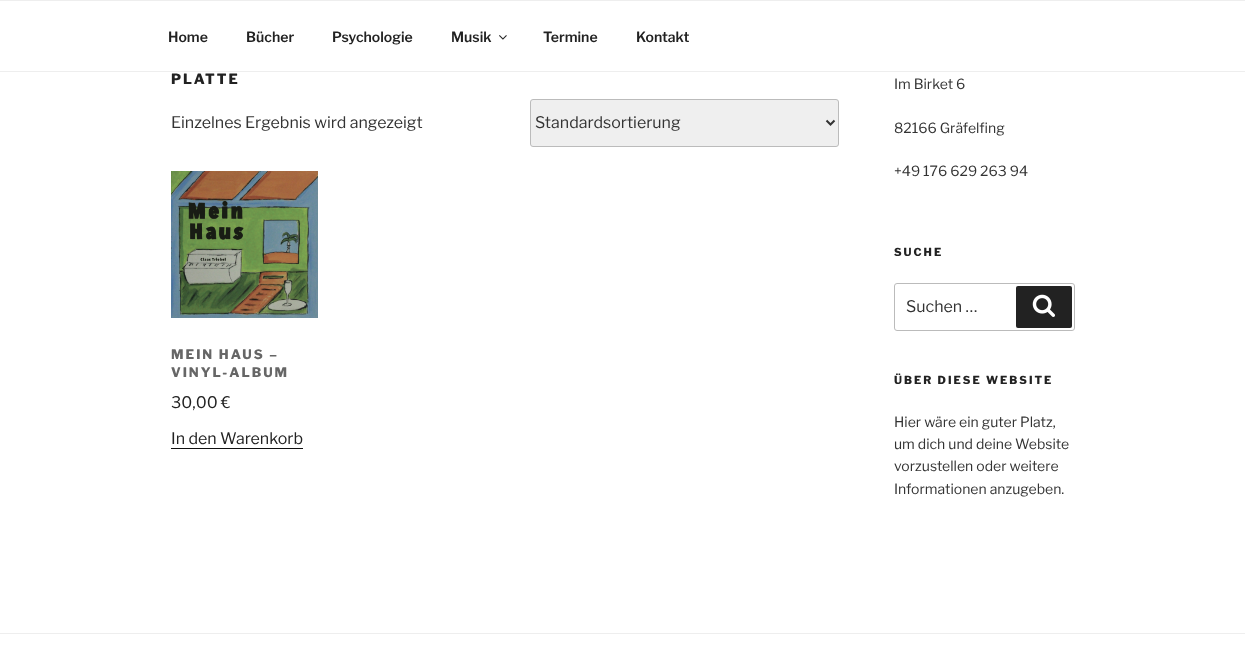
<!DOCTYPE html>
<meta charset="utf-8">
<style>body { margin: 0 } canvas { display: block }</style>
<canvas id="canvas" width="1245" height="667"></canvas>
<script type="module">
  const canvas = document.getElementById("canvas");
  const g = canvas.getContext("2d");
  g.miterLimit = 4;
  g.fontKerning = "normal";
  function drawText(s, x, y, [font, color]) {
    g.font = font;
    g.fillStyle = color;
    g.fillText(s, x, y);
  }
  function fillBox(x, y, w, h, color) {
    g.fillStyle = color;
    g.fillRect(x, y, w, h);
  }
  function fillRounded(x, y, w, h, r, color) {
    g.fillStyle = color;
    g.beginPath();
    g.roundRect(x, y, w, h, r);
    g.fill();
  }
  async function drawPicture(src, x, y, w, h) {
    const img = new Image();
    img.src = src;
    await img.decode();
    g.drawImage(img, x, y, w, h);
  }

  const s1 = ["100 14px 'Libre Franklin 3'", "#222222"];
  const s2 = ["100 14px 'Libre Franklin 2'", "#222222"];
  const s3 = ["100 16px Libre Franklin", "#333333"];
  const s4 = ["100 13px 'Libre Franklin 2'", "#666666"];
  const s5 = ["100 16px Libre Franklin", "#222222"];
  const s6 = ["100 14px Libre Franklin", "#333333"];
  const s7 = ["100 11px 'Libre Franklin 2'", "#222222"];

  fillBox(0, 0, 1245, 667, "#FFFFFF");
  fillBox(0, 0, 1245, 1, "#EEEEEE");
  fillBox(0, 71, 1245, 1, "#EEEEEE");
  drawText("Home", 168, 42, s1);
  drawText("Bücher", 246, 42, s1);
  drawText("Psychologie", 332, 42, s1);
  drawText("Musik", 451, 42, s1);
  await drawPicture("pic1.png", 499, 35, 8, 5);
  drawText("Termine", 543, 42, s1);
  drawText("Kontakt", 636, 42, s1);
  g.letterSpacing = "2px";
  drawText("PLATTE", 171, 84, s2);
  g.letterSpacing = "0px";
  drawText("Einzelnes Ergebnis wird angezeigt", 171, 128, s3);
  g.fillStyle = "#EFEFEF";
  g.beginPath();
  g.roundRect(530.5, 99.5, 308, 47, 2.5);
  g.fill();
  g.strokeStyle = "#BBBBBB";
  g.stroke();
  g.beginPath();
  g.moveTo(826.5, 120.5);
  g.lineTo(830.5, 124.5);
  g.lineTo(834.5, 120.5);
  g.strokeStyle = "#333333";
  g.lineWidth = 2;
  g.stroke();
  drawText("Standardsortierung", 535, 128, s3);
  await drawPicture("pic2.png", 171, 171, 147, 147);
  g.letterSpacing = "2px";
  drawText("MEIN HAUS –", 171, 359, s4);
  drawText("VINYL-ALBUM", 171, 377, s4);
  g.letterSpacing = "0px";
  drawText("30,00 €", 171, 408, s5);
  drawText("In den Warenkorb", 171, 444, s5);
  fillBox(171, 448, 132, 1, "#0F0F0F");
  drawText("Im Birket 6", 894, 89, s6);
  drawText("82166 Gräfelfing", 894, 133, s6);
  drawText("+49 176 629 263 94", 894, 176, s6);
  g.letterSpacing = "2px";
  drawText("SUCHE", 894, 256, s7);
  g.beginPath();
  g.roundRect(894.5, 283.5, 180, 47, 2.5);
  g.strokeStyle = "#BBBBBB";
  g.lineWidth = 1;
  g.stroke();
  g.letterSpacing = "0px";
  drawText("Suchen …", 906, 312, s3);
  fillRounded(1016, 286, 56, 42, 2, "#222222");
  await drawPicture("pic3.png", 1032, 294, 23, 23);
  g.letterSpacing = "2px";
  drawText("ÜBER DIESE WEBSITE", 894, 384, s7);
  g.letterSpacing = "0px";
  drawText("Hier wäre ein guter Platz,", 894, 427, s6);
  drawText("um dich und deine Website", 894, 449, s6);
  drawText("vorzustellen oder weitere", 894, 471, s6);
  drawText("Informationen anzugeben.", 894, 494, s6);
  fillBox(0, 633, 1245, 1, "#EEEEEE");
</script>
